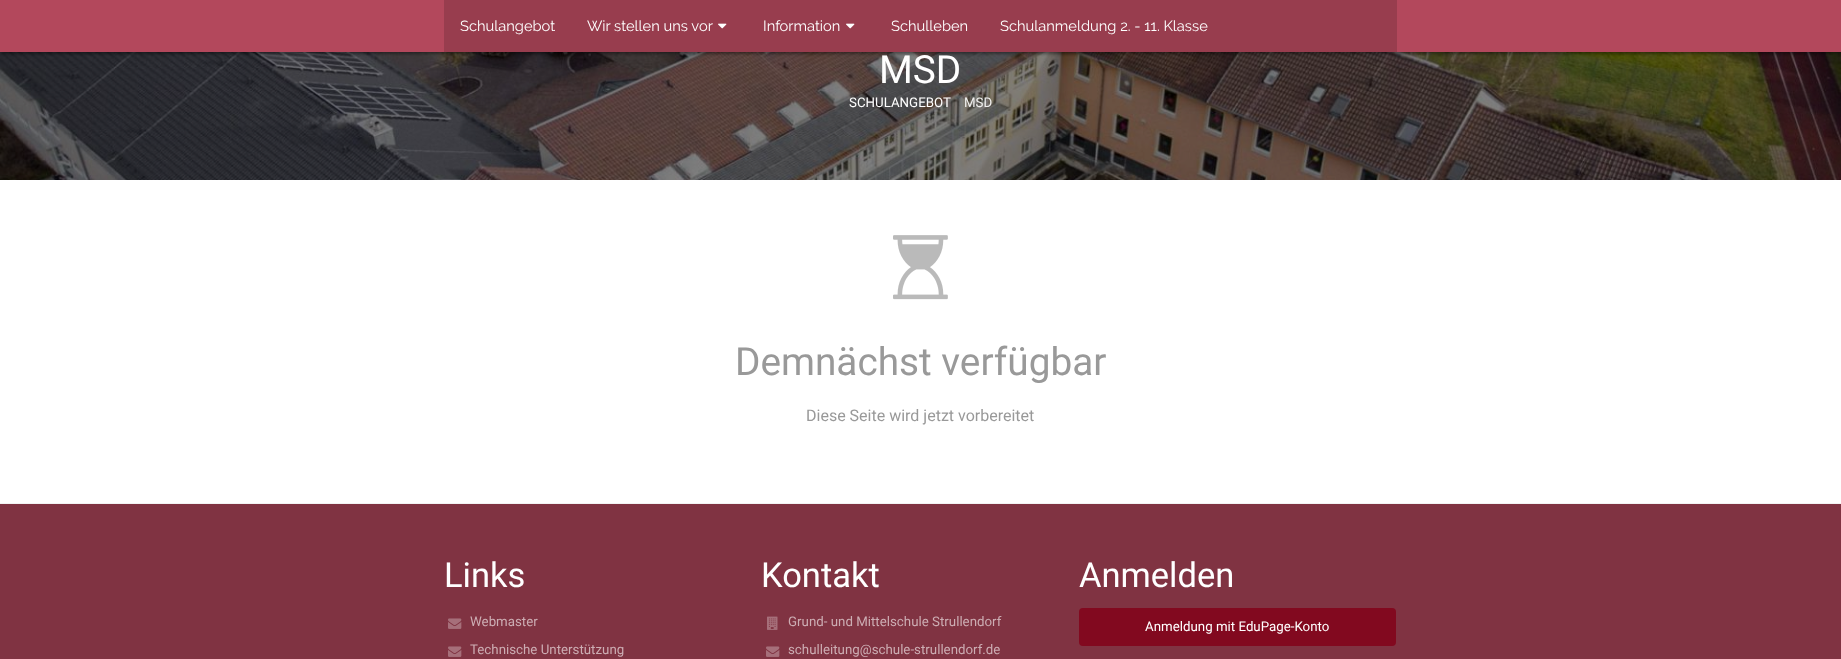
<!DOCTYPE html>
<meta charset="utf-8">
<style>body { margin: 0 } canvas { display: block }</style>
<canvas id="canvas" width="1841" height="659"></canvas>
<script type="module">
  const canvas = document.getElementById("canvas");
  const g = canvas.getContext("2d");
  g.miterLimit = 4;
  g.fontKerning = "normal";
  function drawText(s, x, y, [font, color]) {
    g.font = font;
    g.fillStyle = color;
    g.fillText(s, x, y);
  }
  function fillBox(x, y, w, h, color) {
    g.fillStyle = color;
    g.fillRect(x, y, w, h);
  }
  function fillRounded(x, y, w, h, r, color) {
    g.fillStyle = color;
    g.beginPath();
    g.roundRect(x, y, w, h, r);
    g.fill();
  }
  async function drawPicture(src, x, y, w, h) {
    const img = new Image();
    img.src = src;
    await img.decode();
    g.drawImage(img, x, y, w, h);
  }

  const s1 = ["14.7px Raleway", "#FFFFFF"];
  const s2 = ["38.75px Roboto", "#FFFFFF"];
  const s3 = ["13.3px Roboto", "#FFFFFF"];
  const s4 = ["13.3px Roboto", "#F0F0EF"];
  const s5 = ["38.75px Roboto", "#999999"];
  const s6 = ["16px Roboto", "#999999"];
  const s7 = ["34.5px Roboto", "#FFFFFF"];
  const s8 = ["13.3px Roboto", "#CCADB3"];

  fillBox(0, 0, 1841, 659, "#FFFFFF");
  await drawPicture("pic2.png", 0, 52, 1841, 128);
  g.fillStyle = "rgba(0, 0, 0, 0.4)";
  g.filter = "blur(1.5px)";
  g.beginPath();
  g.rect(2, 2, 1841, 52);
  g.fill();
  g.filter = "none";
  fillBox(0, 0, 1841, 52, "#B3485C");
  fillBox(444, 0, 953, 52, "#983D4E");
  drawText("Schulangebot", 460, 31, s1);
  drawText("Wir stellen uns vor", 587, 31, s1);
  await drawPicture("pic1.png", 718, 23, 9, 6);
  drawText("Information", 763, 31, s1);
  await drawPicture("pic1.png", 846, 23, 9, 6);
  drawText("Schulleben", 891, 31, s1);
  drawText("Schulanmeldung 2. - 11. Klasse", 1000, 31, s1);
  drawText("MSD", 879, 83, s2);
  drawText("SCHULANGEBOT", 849, 107, s3);
  drawText("MSD", 964, 107, s4);
  await drawPicture("pic3.png", 893, 235, 55, 65);
  drawText("Demnächst verfügbar", 735, 375, s5);
  drawText("Diese Seite wird jetzt vorbereitet", 806, 421, s6);
  fillBox(0, 504, 1841, 155, "#803342");
  fillBox(0, 503, 1841, 1, "#F3F3F3");
  drawText("Links", 444, 587, s7);
  await drawPicture("pic4.png", 448, 618, 14, 11);
  drawText("Webmaster", 470, 626, s8);
  await drawPicture("pic4.png", 448, 646, 14, 11);
  drawText("Technische Unterstützung", 470, 654, s8);
  drawText("Kontakt", 761, 587, s7);
  await drawPicture("pic5.png", 767, 616, 11, 14);
  drawText("Grund- und Mittelschule Strullendorf", 788, 626, s8);
  await drawPicture("pic4.png", 766, 646, 14, 11);
  drawText("schulleitung@schule-strullendorf.de", 788, 654, s8);
  drawText("Anmelden", 1079, 587, s7);
  fillRounded(1079, 608, 317, 38, 4, "#82091F");
  drawText("Anmeldung mit EduPage-Konto", 1145, 631, s3);
</script>
